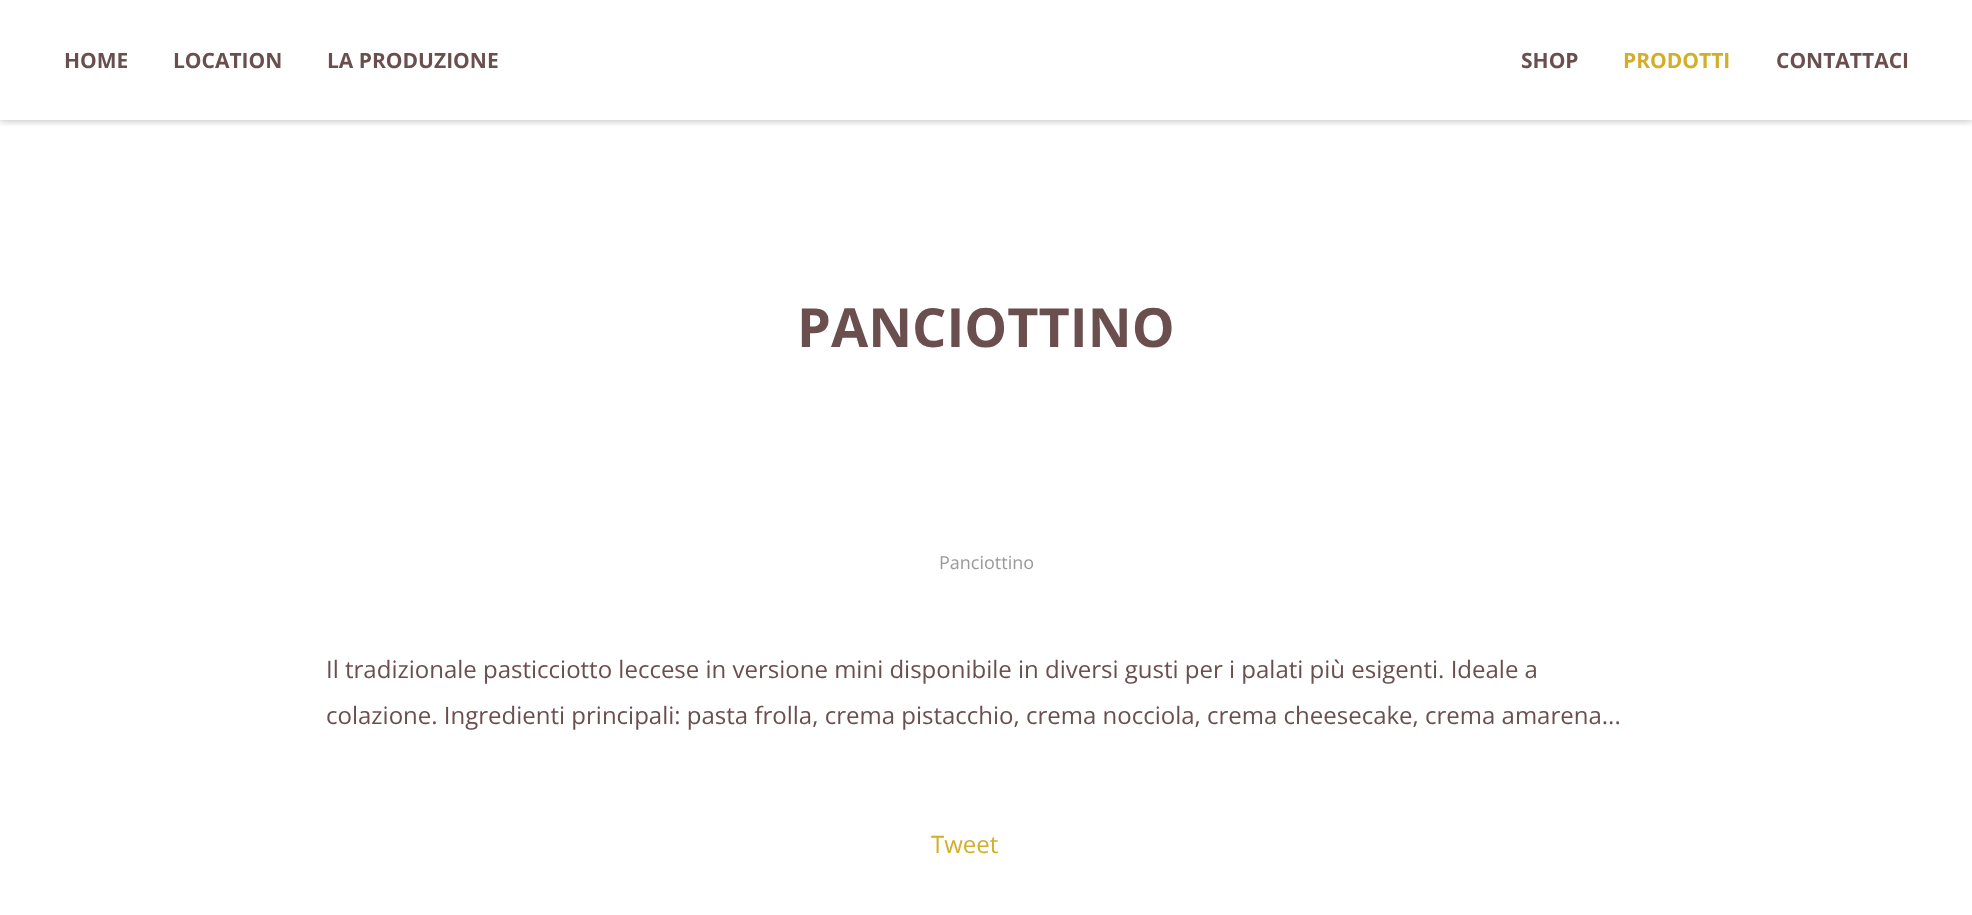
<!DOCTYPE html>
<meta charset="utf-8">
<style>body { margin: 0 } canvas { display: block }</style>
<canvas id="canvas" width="1972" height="915"></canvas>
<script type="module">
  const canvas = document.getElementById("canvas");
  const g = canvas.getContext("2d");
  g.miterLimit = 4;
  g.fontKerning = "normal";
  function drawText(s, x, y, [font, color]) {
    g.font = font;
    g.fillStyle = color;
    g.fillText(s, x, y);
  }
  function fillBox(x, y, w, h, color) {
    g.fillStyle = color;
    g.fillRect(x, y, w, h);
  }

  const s1 = ["bold 21px Open Sans", "#6B4F4F"];
  const s2 = ["bold 21px Open Sans", "#D3AE2A"];
  const s3 = ["bold 54px Open Sans", "#6B4F4F"];
  const s4 = ["18px Open Sans", "#999999"];
  const s5 = ["24px Open Sans", "#6B4F4F"];
  const s6 = ["24px Open Sans", "#D3AE2A"];

  fillBox(0, 0, 1972, 915, "#FFFFFF");
  g.save();
  g.beginPath();
  g.rect(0, 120, 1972, 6);
  g.clip();
  g.fillStyle = "rgba(0, 0, 0, 0.3)";
  g.filter = "blur(4px)";
  g.beginPath();
  g.rect(0, 0, 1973, 120);
  g.fill();
  g.filter = "none";
  g.restore();
  drawText("HOME", 64, 68, s1);
  drawText("LOCATION", 173, 68, s1);
  drawText("LA PRODUZIONE", 327, 68, s1);
  drawText("SHOP", 1521, 68, s1);
  drawText("PRODOTTI", 1623, 68, s2);
  drawText("CONTATTACI", 1776, 68, s1);
  drawText("PANCIOTTINO", 797, 347, s3);
  drawText("Panciottino", 939, 569, s4);
  drawText("Il tradizionale pasticciotto leccese in versione mini disponibile in diversi gusti per i palati più esigenti. Ideale a", 326, 678, s5);
  drawText("colazione. Ingredienti principali: pasta frolla, crema pistacchio, crema nocciola, crema cheesecake, crema amarena...", 326, 724, s5);
  drawText("Tweet", 931, 853, s6);
</script>
